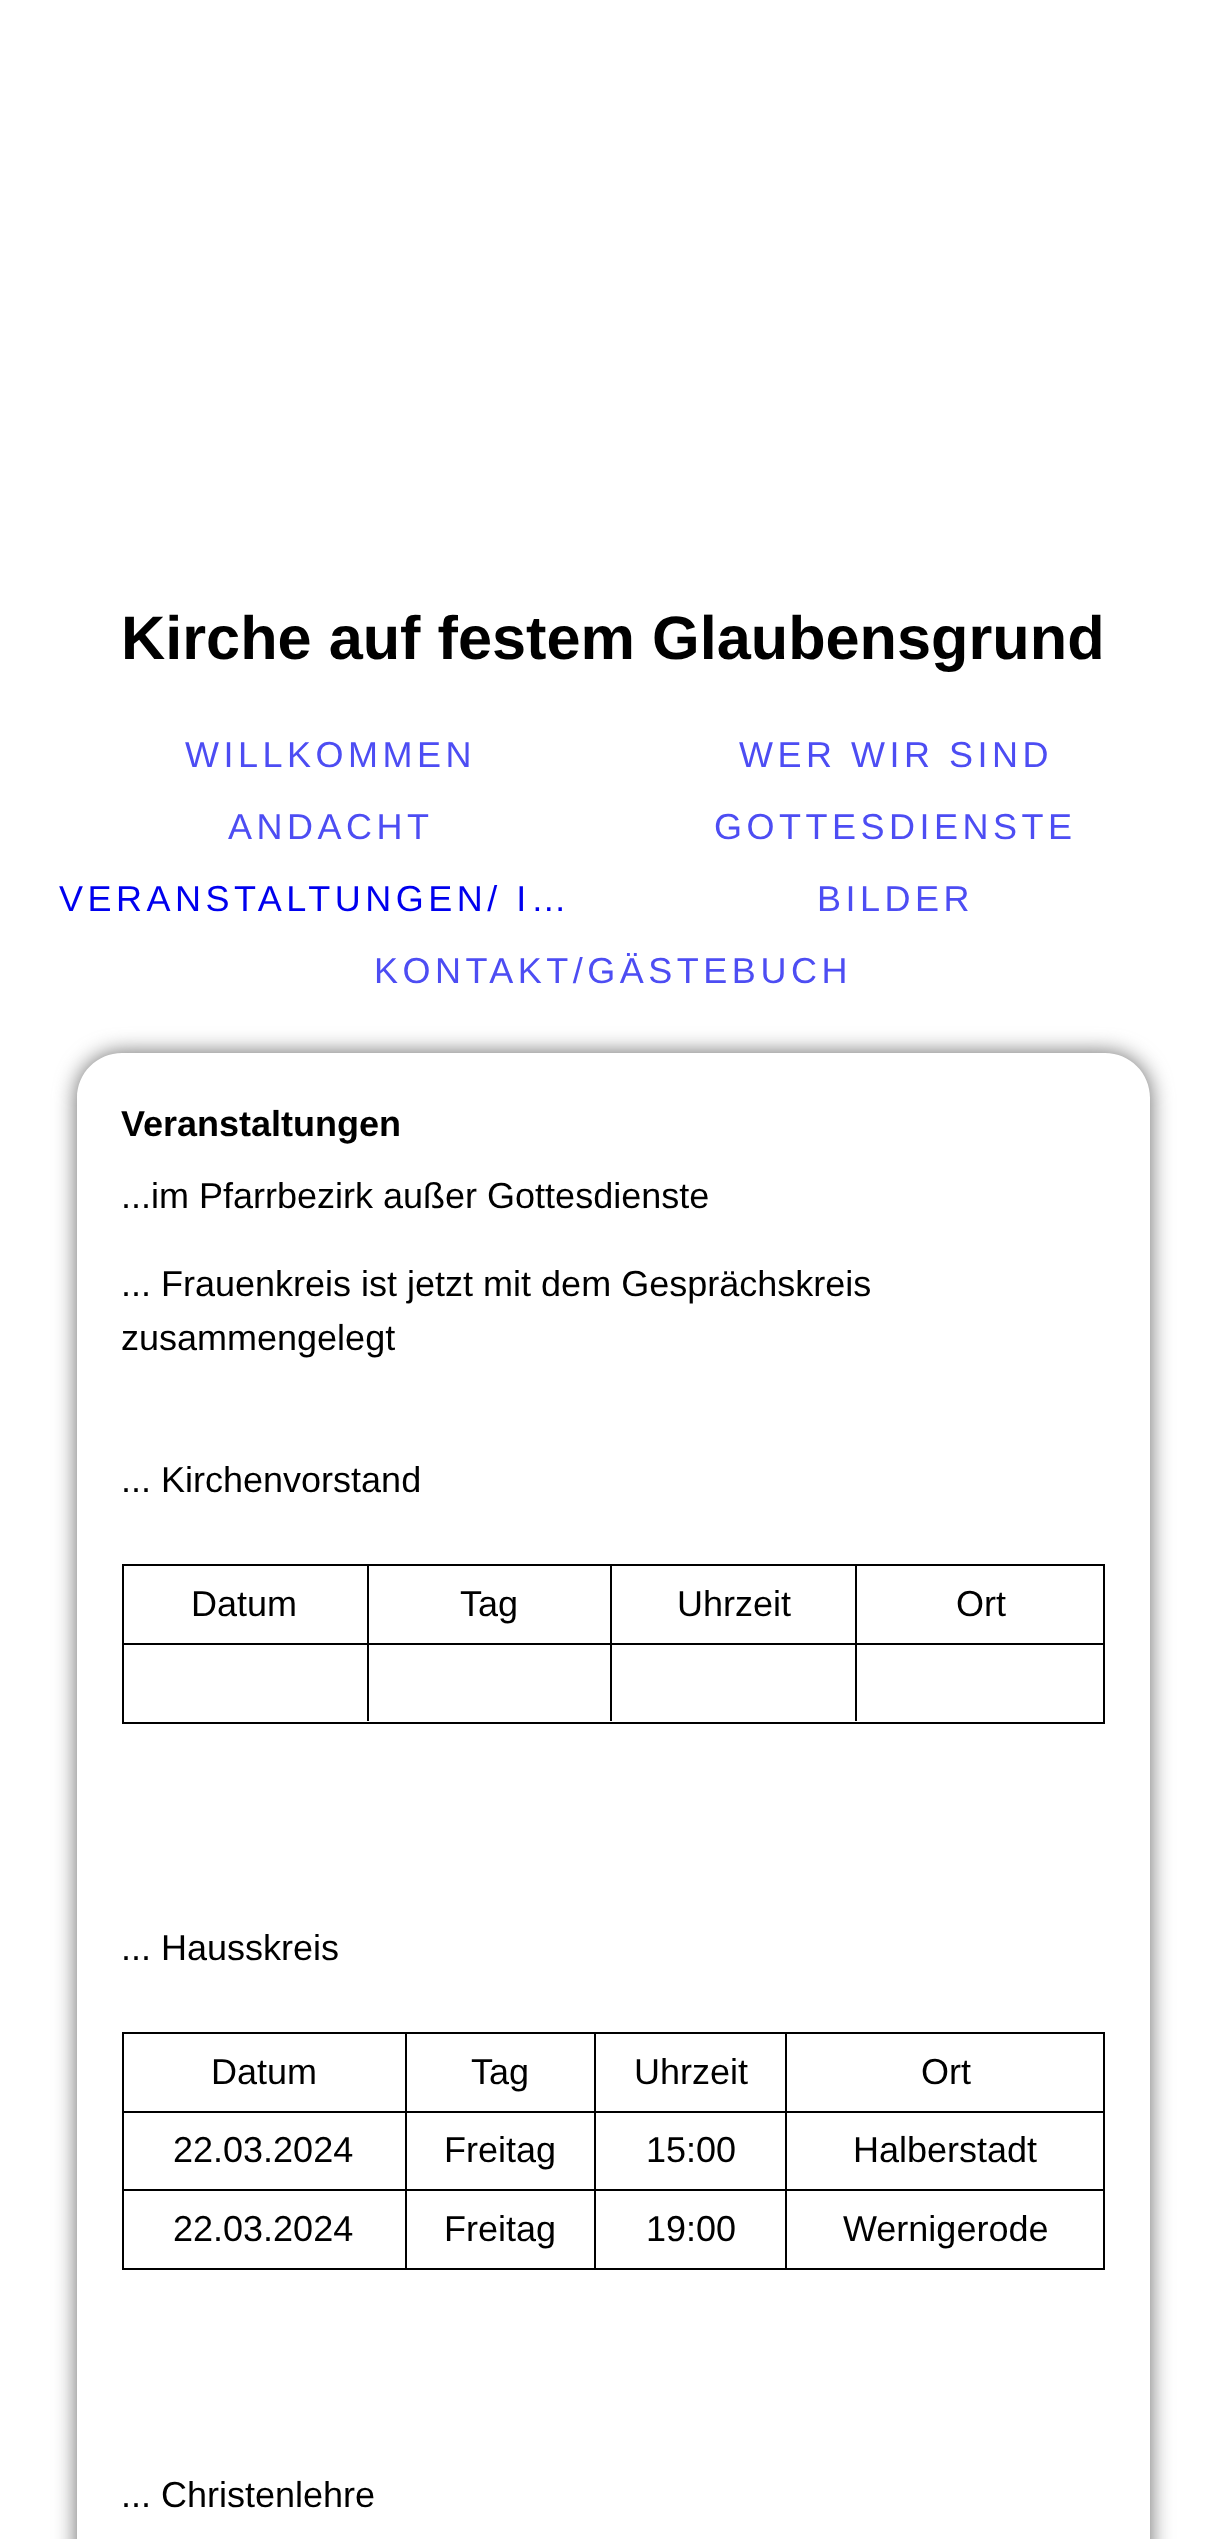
<!DOCTYPE html>
<meta charset="utf-8">
<style>body { margin: 0 } canvas { display: block }</style>
<canvas id="canvas" width="1226" height="2539"></canvas>
<script type="module">
  const canvas = document.getElementById("canvas");
  const g = canvas.getContext("2d");
  g.miterLimit = 4;
  g.fontKerning = "normal";
  function drawText(s, x, y, [font, color]) {
    g.font = font;
    g.fillStyle = color;
    g.fillText(s, x, y);
  }
  function fillBox(x, y, w, h, color) {
    g.fillStyle = color;
    g.fillRect(x, y, w, h);
  }

  const s1 = ["bold 61.25px Liberation Sans", "#000000"];
  const s2 = ["36px Liberation Sans", "#4D4DF3"];
  const s3 = ["36px Liberation Sans", "#0000EE"];
  const s4 = ["bold 36px Liberation Sans", "#000000"];
  const s5 = ["36px Liberation Sans", "#000000"];

  fillBox(0, 0, 1226, 2539, "#FFFFFF");
  drawText("Kirche auf festem Glaubensgrund", 121, 659, s1);
  g.letterSpacing = "4.5px";
  drawText("WILLKOMMEN", 185, 767, s2);
  drawText("WER WIR SIND", 739, 767, s2);
  drawText("ANDACHT", 228, 839, s2);
  drawText("GOTTESDIENSTE", 714, 839, s2);
  drawText("VERANSTALTUNGEN/ I…", 59, 911, s3);
  drawText("BILDER", 817, 911, s2);
  drawText("KONTAKT/GÄSTEBUCH", 374, 983, s2);
  g.save();
  g.beginPath();
  g.moveTo(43, 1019);
  g.lineTo(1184, 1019);
  g.lineTo(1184, 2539);
  g.lineTo(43, 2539);
  g.closePath();
  g.moveTo(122, 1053);
  g.lineTo(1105, 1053);
  g.bezierCurveTo(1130, 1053, 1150, 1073, 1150, 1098);
  g.lineTo(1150, 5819);
  g.bezierCurveTo(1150, 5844, 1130, 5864, 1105, 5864);
  g.lineTo(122, 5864);
  g.bezierCurveTo(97, 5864, 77, 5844, 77, 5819);
  g.lineTo(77, 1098);
  g.bezierCurveTo(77, 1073, 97, 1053, 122, 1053);
  g.closePath();
  g.clip("evenodd");
  g.fillStyle = "#666666";
  g.filter = "blur(11px)";
  g.beginPath();
  g.roundRect(77, 1053, 1073, 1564, 45);
  g.fill();
  g.filter = "none";
  g.restore();
  g.letterSpacing = "0px";
  drawText("Veranstaltungen", 121, 1136, s4);
  drawText("...im Pfarrbezirk außer Gottesdienste", 121, 1208, s5);
  drawText("... Frauenkreis ist jetzt mit dem Gesprächskreis", 121, 1296, s5);
  drawText("zusammengelegt", 121, 1350, s5);
  drawText("... Kirchenvorstand", 121, 1492, s5);
  g.strokeStyle = "#000000";
  g.lineWidth = 2;
  g.strokeRect(123, 1565, 981, 158);
  fillBox(367, 1566, 2, 155, "#000000");
  fillBox(124, 1643, 245, 2, "#000000");
  drawText("Datum", 191, 1616, s5);
  fillBox(610, 1566, 2, 155, "#000000");
  fillBox(369, 1643, 243, 2, "#000000");
  drawText("Tag", 460, 1616, s5);
  fillBox(855, 1566, 2, 155, "#000000");
  fillBox(612, 1643, 491, 2, "#000000");
  drawText("Uhrzeit", 677, 1616, s5);
  drawText("Ort", 956, 1616, s5);
  drawText("... Hausskreis", 121, 1960, s5);
  g.strokeRect(123, 2033, 981, 236);
  fillBox(405, 2034, 2, 234, "#000000");
  fillBox(124, 2111, 283, 2, "#000000");
  drawText("Datum", 211, 2084, s5);
  fillBox(594, 2034, 2, 234, "#000000");
  fillBox(407, 2111, 189, 2, "#000000");
  drawText("Tag", 471, 2084, s5);
  fillBox(785, 2034, 2, 234, "#000000");
  fillBox(596, 2111, 507, 2, "#000000");
  drawText("Uhrzeit", 634, 2084, s5);
  drawText("Ort", 921, 2084, s5);
  fillBox(124, 2189, 979, 2, "#000000");
  drawText("22.03.2024", 173, 2162, s5);
  drawText("Freitag", 444, 2162, s5);
  drawText("15:00", 646, 2162, s5);
  drawText("Halberstadt", 853, 2162, s5);
  drawText("22.03.2024", 173, 2241, s5);
  drawText("Freitag", 444, 2241, s5);
  drawText("19:00", 646, 2241, s5);
  drawText("Wernigerode", 843, 2241, s5);
  drawText("... Christenlehre", 121, 2507, s5);
</script>
